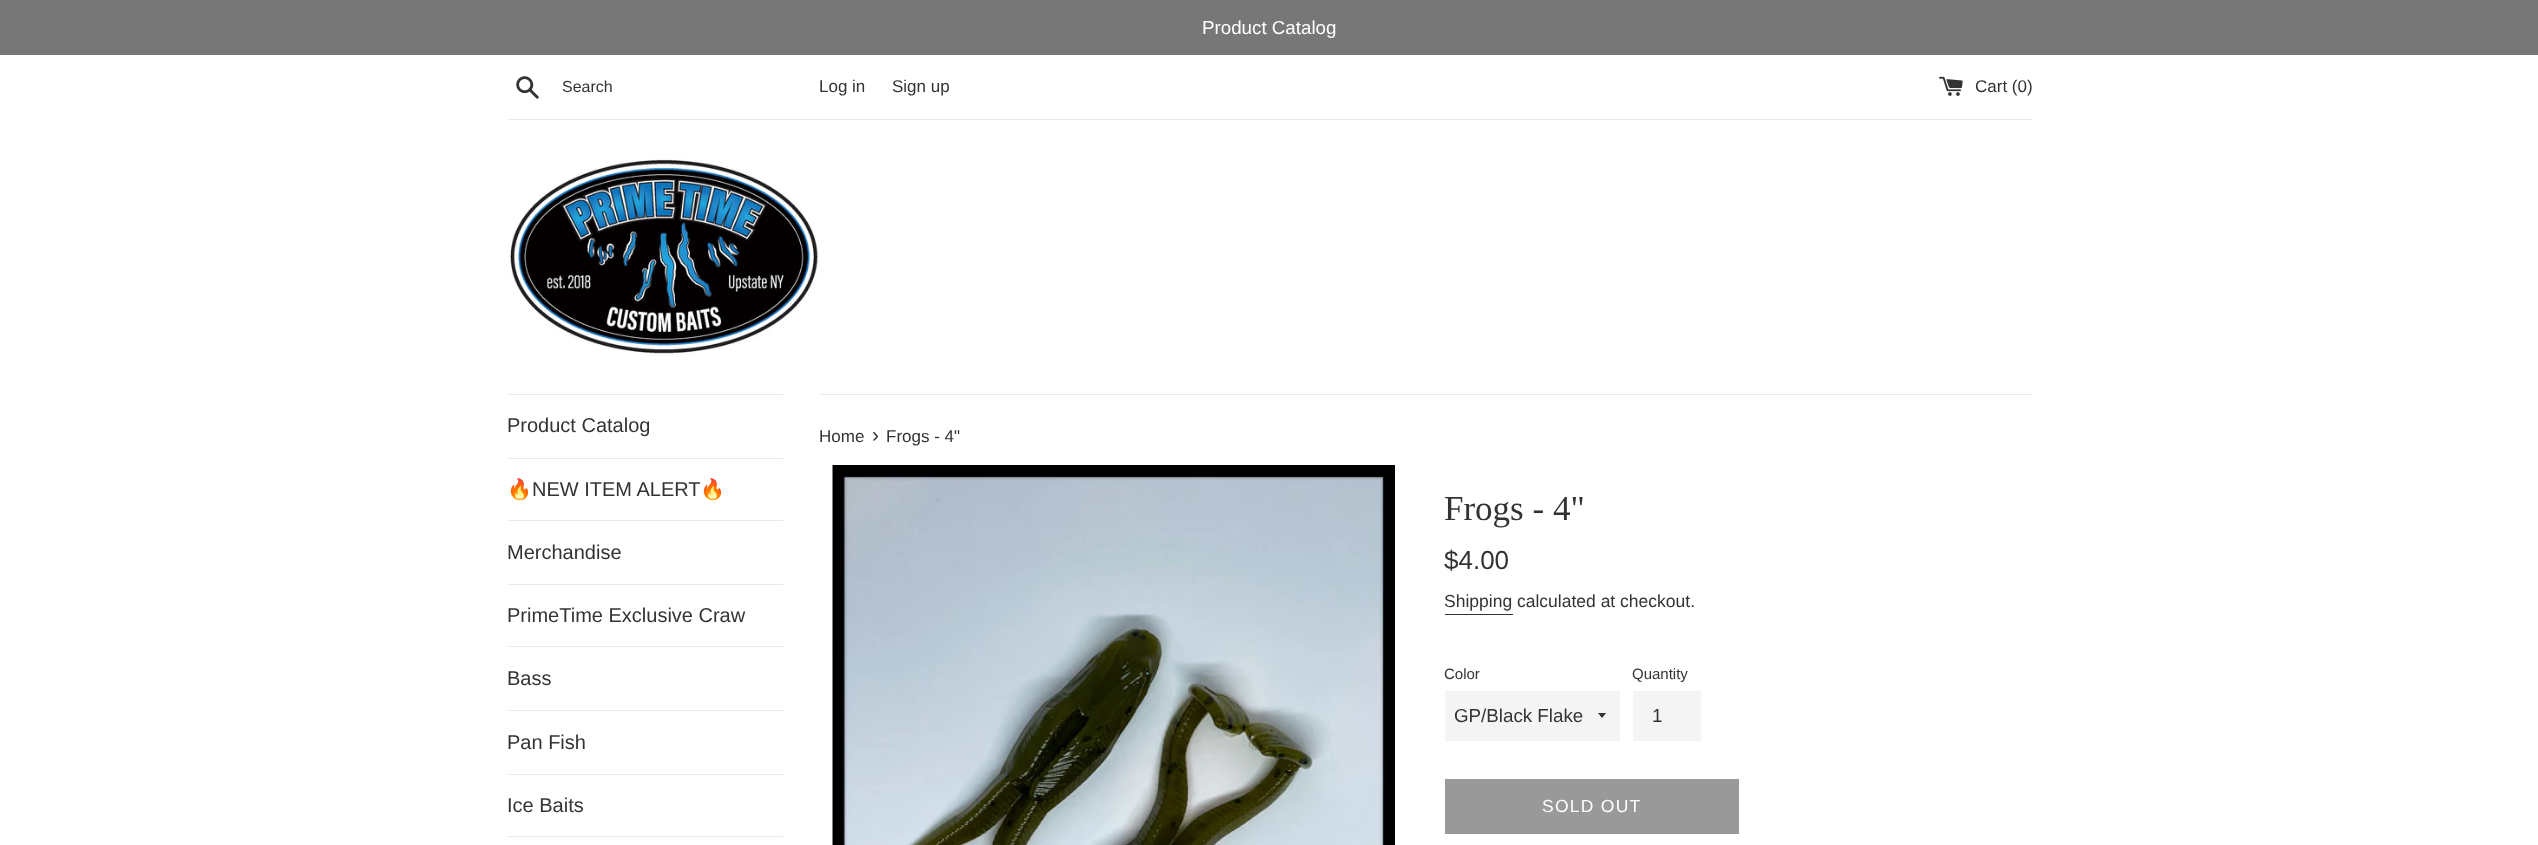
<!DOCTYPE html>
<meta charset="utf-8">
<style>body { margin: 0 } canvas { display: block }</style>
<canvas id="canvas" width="2538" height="845"></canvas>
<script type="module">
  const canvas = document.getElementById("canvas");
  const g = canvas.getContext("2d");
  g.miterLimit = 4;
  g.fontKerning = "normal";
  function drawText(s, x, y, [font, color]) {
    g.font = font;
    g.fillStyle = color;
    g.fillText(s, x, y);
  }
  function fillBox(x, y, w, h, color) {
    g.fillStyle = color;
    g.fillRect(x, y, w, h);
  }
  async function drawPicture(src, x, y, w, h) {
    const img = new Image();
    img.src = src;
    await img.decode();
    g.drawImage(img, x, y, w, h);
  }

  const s1 = ["18.75px Liberation Sans", "#FFFFFF"];
  const s2 = ["16px Liberation Sans", "#333333"];
  const s3 = ["17px Liberation Sans", "#333333"];
  const s4 = ["20px Liberation Sans", "#333333"];
  const s5 = ["20px Noto Color Emoji", "#333333"];
  const s6 = ["21px Liberation Sans", "#333333"];
  const s7 = ["35px Liberation Serif", "#333333"];
  const s8 = ["26px Liberation Sans", "#333333"];
  const s9 = ["17.5px Liberation Sans", "#333333"];
  const s10 = ["15px Liberation Sans", "#333333"];
  const s11 = ["18.75px Liberation Sans", "#333333"];
  const s12 = ["17.5px Liberation Sans", "#FFFFFF"];

  fillBox(0, 0, 2538, 845, "#FFFFFF");
  fillBox(0, 0, 2538, 55, "#777777");
  drawText("Product Catalog", 1202, 34, s1);
  await drawPicture("pic1.png", 516, 76, 23, 23);
  drawText("Search", 562, 92, s2);
  drawText("Log in", 819, 92, s3);
  drawText("Sign up", 892, 92, s3);
  await drawPicture("pic2.png", 1939, 76, 24, 20);
  drawText("Cart (0)", 1975, 92, s3);
  fillBox(508, 119, 1525, 1, "#E8E8E8");
  await drawPicture("pic3.png", 510, 158, 309, 196);
  fillBox(508, 394, 275, 1, "#E8E8E8");
  fillBox(508, 458, 275, 1, "#E8E8E8");
  drawText("Product Catalog", 507, 432, s4);
  fillBox(508, 520, 275, 1, "#E8E8E8");
  drawText("🔥", 507, 496, s5);
  drawText("NEW ITEM ALERT", 532, 496, s4);
  drawText("🔥", 700, 496, s5);
  fillBox(508, 584, 275, 1, "#E8E8E8");
  drawText("Merchandise", 507, 559, s4);
  fillBox(508, 646, 275, 1, "#E8E8E8");
  drawText("PrimeTime Exclusive Craw", 507, 622, s4);
  fillBox(508, 710, 275, 1, "#E8E8E8");
  drawText("Bass", 507, 685, s4);
  fillBox(508, 774, 275, 1, "#E8E8E8");
  drawText("Pan Fish", 507, 749, s4);
  fillBox(508, 836, 275, 1, "#E8E8E8");
  drawText("Ice Baits", 507, 812, s4);
  fillBox(820, 394, 1213, 1, "#E8E8E8");
  drawText("Home", 819, 442, s3);
  drawText("›", 872, 442, s6);
  drawText("Frogs - 4\"", 886, 442, s3);
  await drawPicture("pic4.png", 832, 465, 563, 380);
  drawText("Frogs - 4\"", 1444, 520, s7);
  drawText("$4.00", 1444, 569, s8);
  drawText("Shipping calculated at checkout.", 1444, 607, s9);
  fillBox(1445, 614, 68, 1, "#333333");
  drawText("Color", 1444, 679, s10);
  fillBox(1445, 691, 175, 50, "#F4F4F4");
  g.save();
  g.beginPath();
  g.rect(1598, 713, 10, 6);
  g.clip();
  g.fillStyle = "#333333";
  g.beginPath();
  g.moveTo(1597.5, 712.5);
  g.lineTo(1602, 718);
  g.lineTo(1606.5, 712.5);
  g.closePath();
  g.fill();
  g.restore();
  drawText("GP/Black Flake", 1454, 722, s11);
  drawText("Quantity", 1632, 679, s10);
  fillBox(1633, 691, 68, 50, "#F4F4F4");
  drawText("1", 1652, 722, s11);
  fillBox(1445, 779, 294, 55, "#999999");
  g.letterSpacing = "1.25px";
  drawText("SOLD OUT", 1542, 812, s12);
</script>
